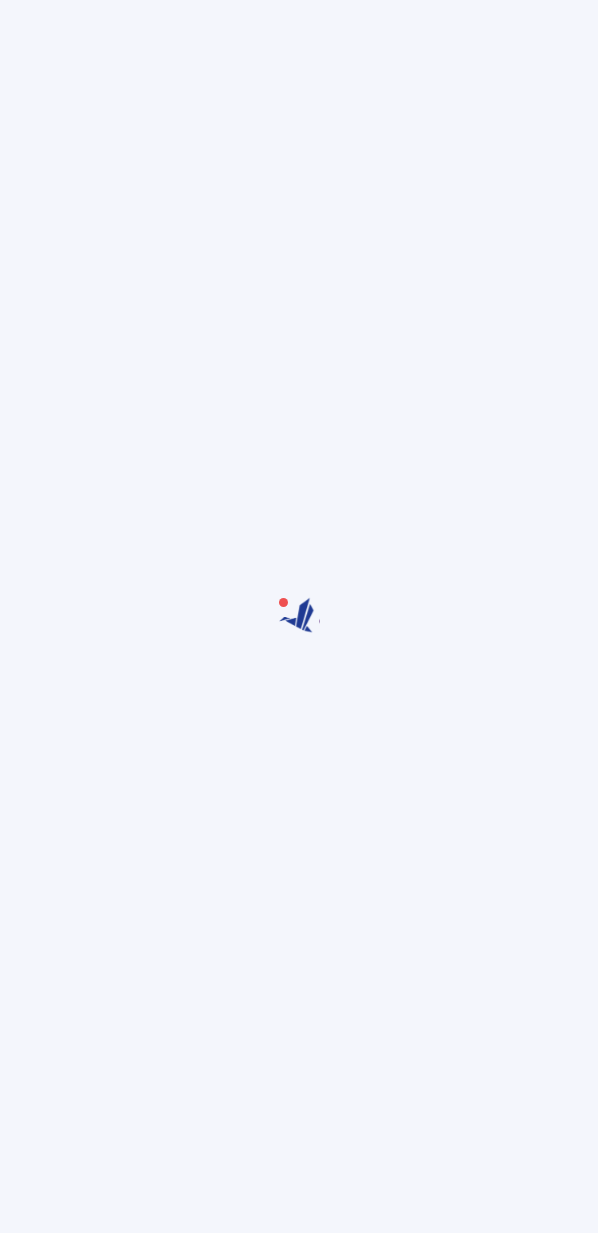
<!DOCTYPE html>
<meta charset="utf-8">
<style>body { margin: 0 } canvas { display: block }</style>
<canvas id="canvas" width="598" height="1233"></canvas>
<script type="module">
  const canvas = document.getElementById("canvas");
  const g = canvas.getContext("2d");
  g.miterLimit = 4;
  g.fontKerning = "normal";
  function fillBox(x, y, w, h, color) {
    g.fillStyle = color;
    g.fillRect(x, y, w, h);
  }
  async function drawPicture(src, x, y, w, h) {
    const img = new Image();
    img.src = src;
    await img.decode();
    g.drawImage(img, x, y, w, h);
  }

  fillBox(0, 0, 598, 1233, "#F4F6FC");
  await drawPicture("pic1.png", 279, 597, 41, 36);
  g.fillStyle = "#EE5050";
  g.beginPath();
  g.arc(283.5, 602.5, 4.5, 0, Math.PI * 2);
  g.fill();
</script>
